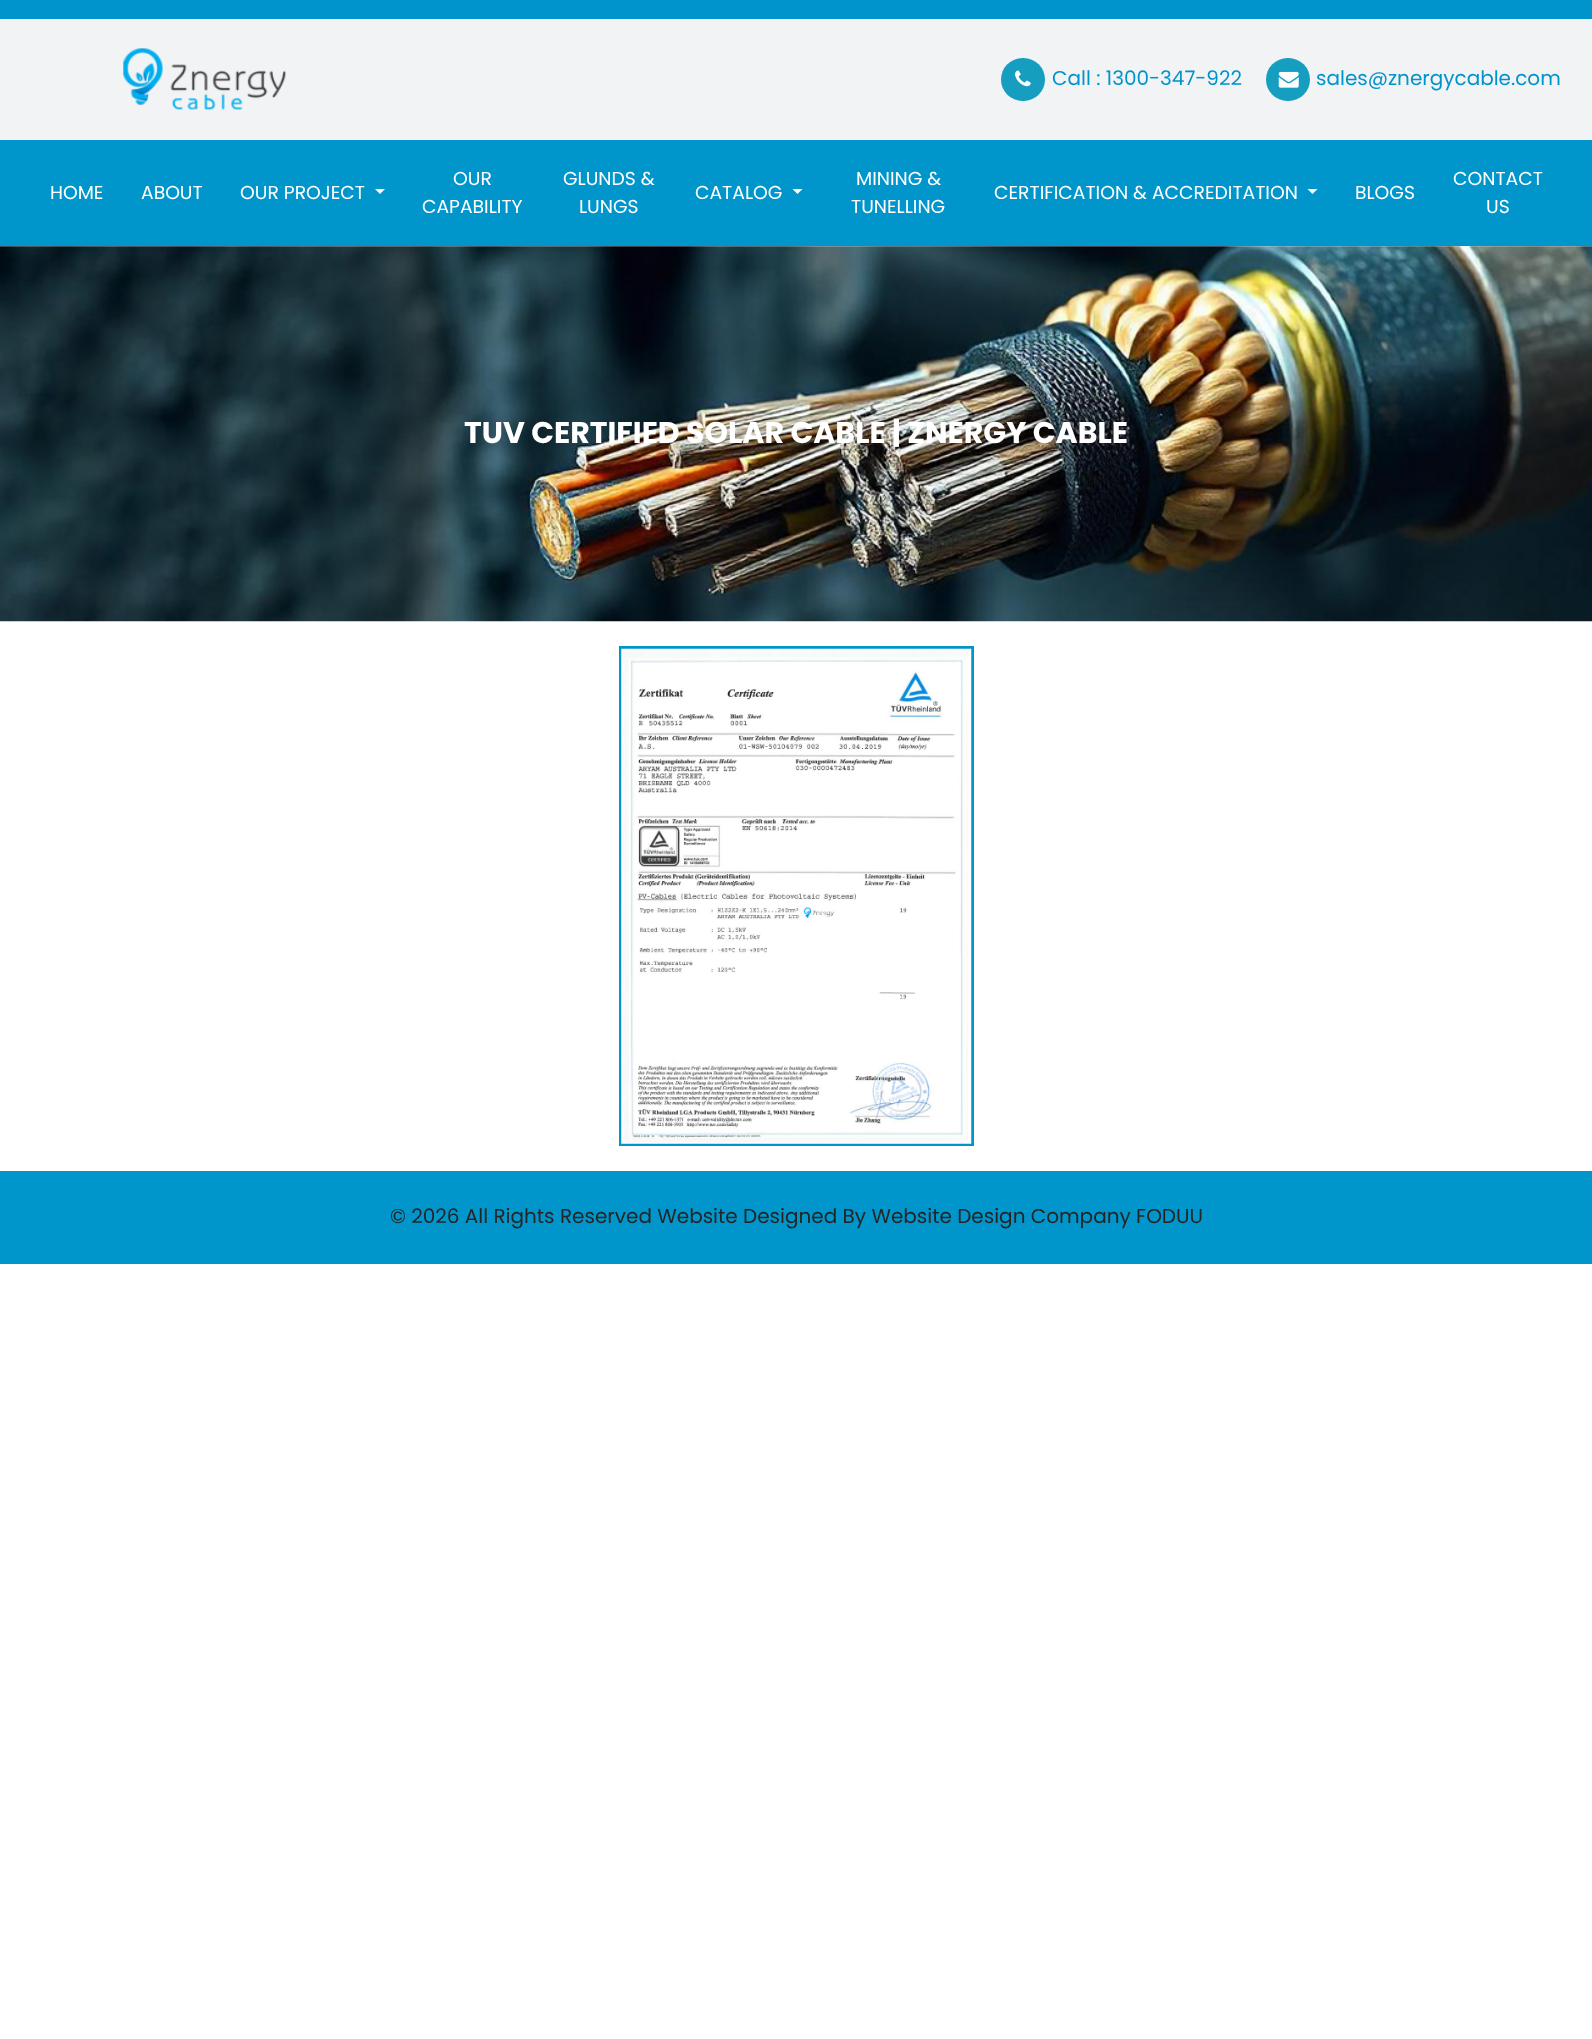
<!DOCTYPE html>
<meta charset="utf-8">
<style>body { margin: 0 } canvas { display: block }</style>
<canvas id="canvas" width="1592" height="2039"></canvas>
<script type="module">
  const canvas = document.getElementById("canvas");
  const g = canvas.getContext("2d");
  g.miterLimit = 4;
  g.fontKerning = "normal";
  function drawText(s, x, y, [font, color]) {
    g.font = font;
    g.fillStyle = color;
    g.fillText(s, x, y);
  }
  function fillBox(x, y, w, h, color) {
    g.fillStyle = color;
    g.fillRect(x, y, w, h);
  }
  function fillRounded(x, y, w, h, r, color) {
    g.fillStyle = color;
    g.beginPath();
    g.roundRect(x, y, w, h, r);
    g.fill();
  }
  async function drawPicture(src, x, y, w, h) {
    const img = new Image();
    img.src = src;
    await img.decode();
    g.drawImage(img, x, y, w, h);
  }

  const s1 = ["20px Poppins", "#0094CC"];
  const s2 = ["18.75px Poppins", "#FFFFFF"];
  const s3 = ["bold 30px Poppins", "#FFFFFF"];
  const s4 = ["20px Poppins", "#252525"];

  fillBox(0, 0, 1592, 2039, "#FFFFFF");
  fillBox(0, 0, 1592, 19, "#0094CC");
  fillBox(0, 19, 1592, 121, "#F1F3F4");
  await drawPicture("pic1.png", 123, 48, 163, 62);
  fillRounded(1001, 58, 44, 43, 21.5, "#159EC0");
  await drawPicture("pic2.png", 1015, 70, 16, 17);
  drawText("Call : 1300-347-922", 1052, 85, s1);
  fillRounded(1266, 58, 44, 43, 21.5, "#159EC0");
  await drawPicture("pic3.png", 1278, 71, 21, 17);
  drawText("sales@znergycable.com", 1316, 85, s1);
  fillBox(0, 140, 1592, 106, "#0096CC");
  drawText("HOME", 50, 199, s2);
  drawText("ABOUT", 141, 199, s2);
  drawText("OUR PROJECT", 240, 199, s2);
  g.beginPath();
  g.moveTo(375, 189);
  g.lineTo(385, 189);
  g.lineTo(380, 194);
  g.closePath();
  g.fill();
  drawText("OUR", 453, 185, s2);
  drawText("CAPABILITY", 422, 213, s2);
  drawText("GLUNDS &", 563, 185, s2);
  drawText("LUNGS", 579, 213, s2);
  drawText("CATALOG", 695, 199, s2);
  g.beginPath();
  g.moveTo(792.5, 189);
  g.lineTo(802.5, 189);
  g.lineTo(797.5, 194);
  g.closePath();
  g.fill();
  drawText("MINING &", 856, 185, s2);
  drawText("TUNELLING", 851, 213, s2);
  drawText("CERTIFICATION & ACCREDITATION", 994, 199, s2);
  g.beginPath();
  g.moveTo(1307.5, 189);
  g.lineTo(1317.5, 189);
  g.lineTo(1312.5, 194);
  g.closePath();
  g.fill();
  drawText("BLOGS", 1355, 199, s2);
  drawText("CONTACT", 1453, 185, s2);
  drawText("US", 1486, 213, s2);
  await drawPicture("pic4.png", 0, 246, 1592, 376);
  drawText("TUV CERTIFIED SOLAR CABLE | ZNERGY CABLE", 464, 443, s3);
  g.strokeStyle = "#0096CC";
  g.lineWidth = 3;
  g.strokeRect(620.5, 647.5, 352, 497);
  await drawPicture("pic5.png", 621, 648, 351, 496);
  fillBox(0, 1171, 1592, 93, "#0096CC");
  drawText("© 2026 All Rights Reserved Website Designed By Website Design Company FODUU", 390, 1223, s4);
</script>
